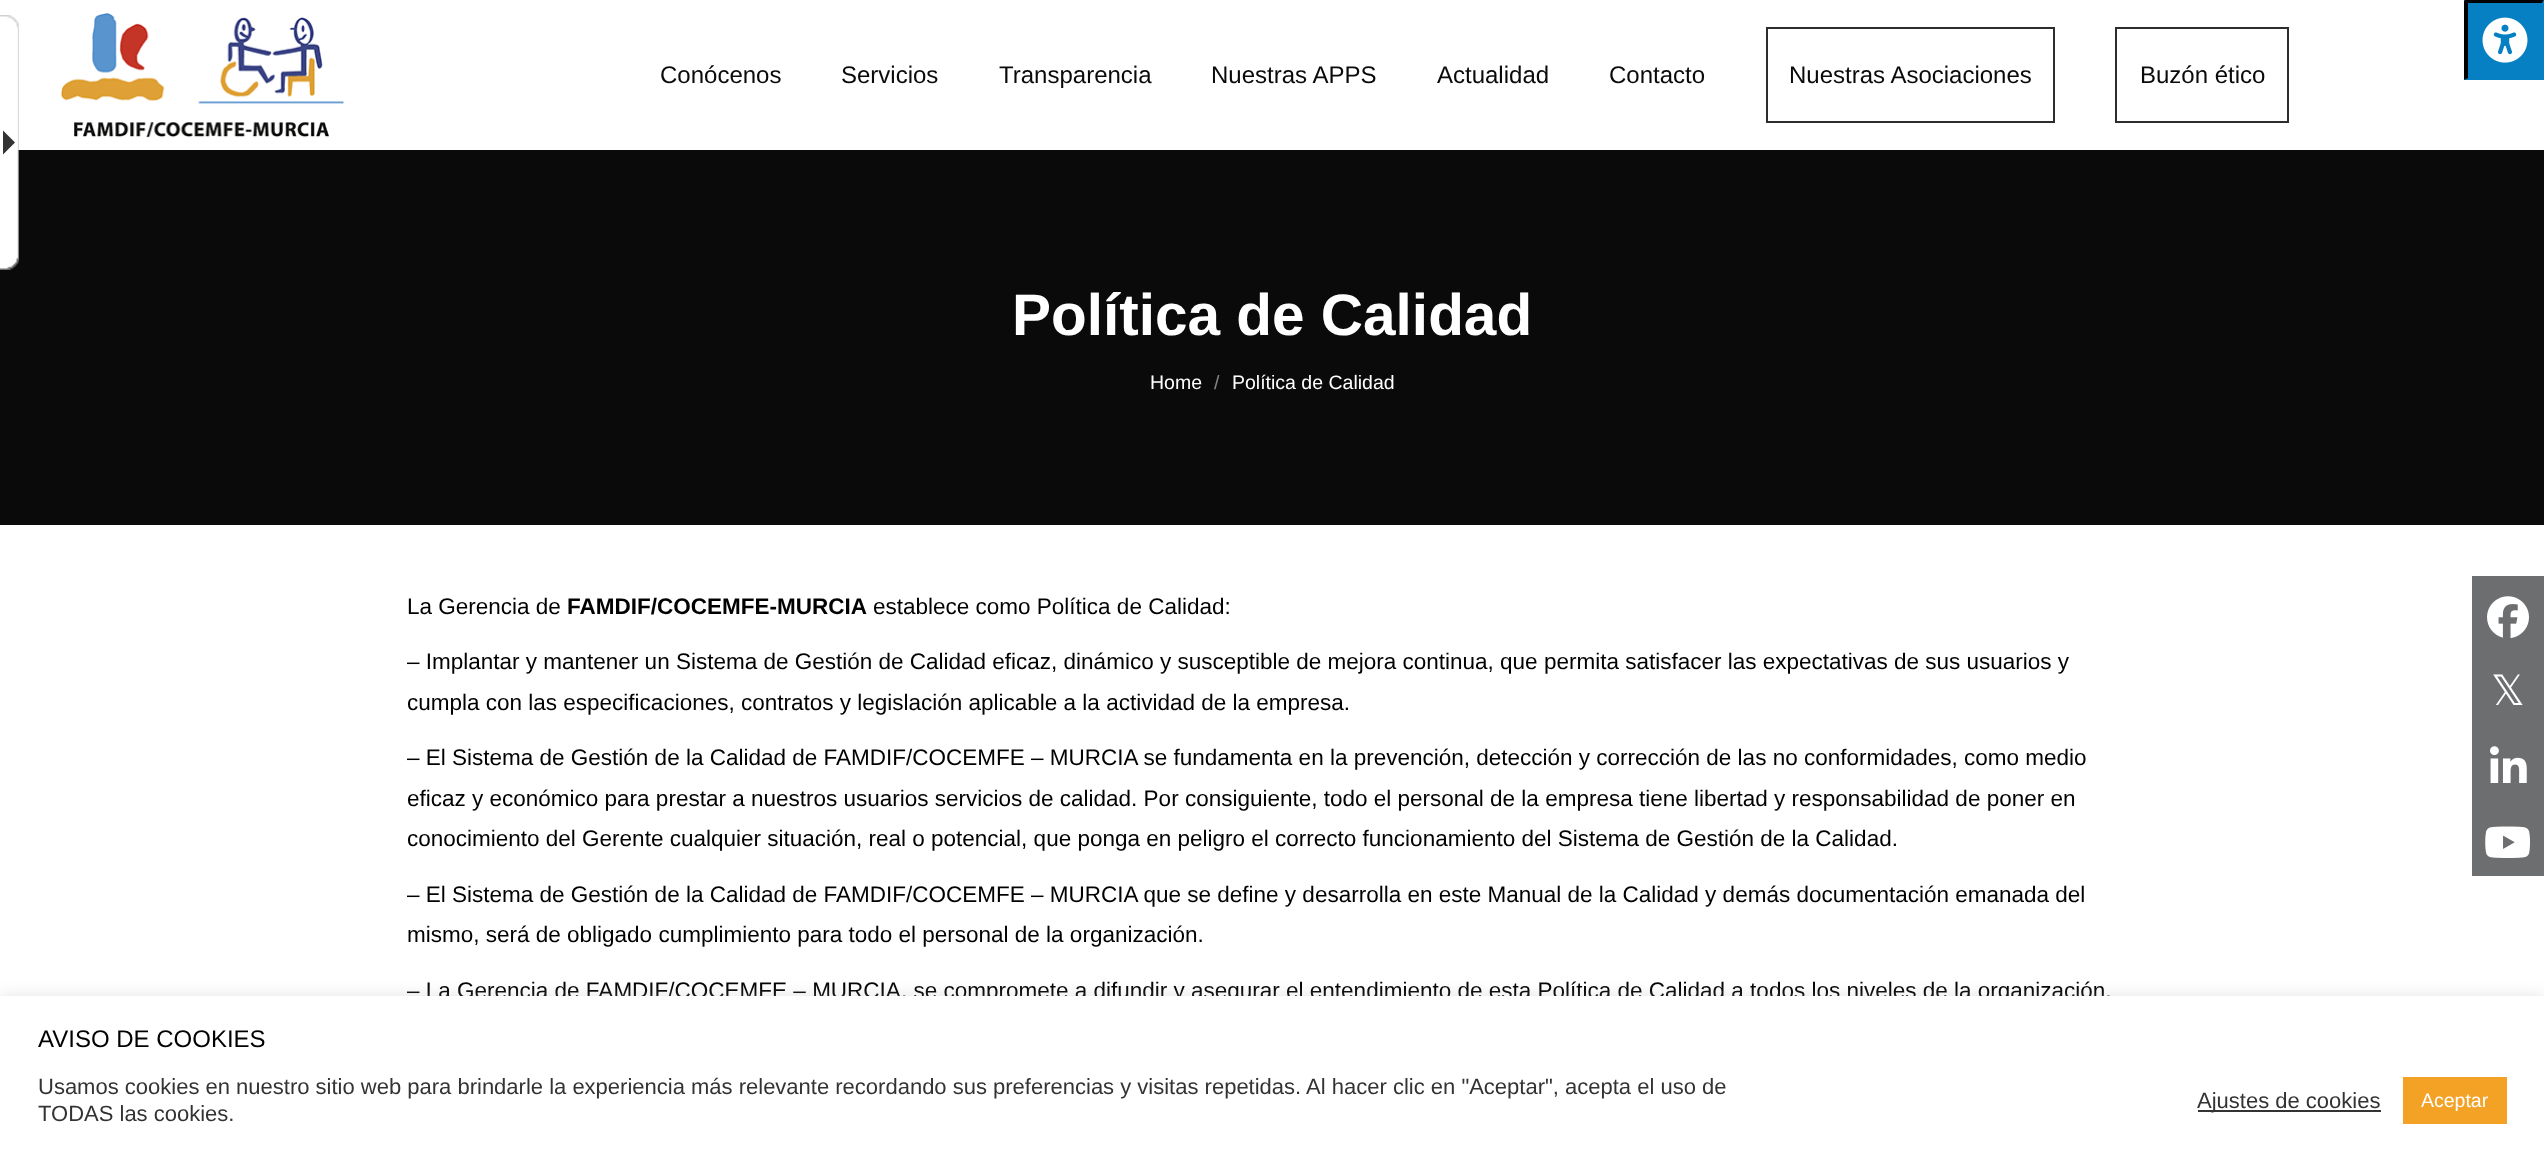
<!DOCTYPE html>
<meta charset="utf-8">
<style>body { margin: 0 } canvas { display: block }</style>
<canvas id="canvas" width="2544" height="1152"></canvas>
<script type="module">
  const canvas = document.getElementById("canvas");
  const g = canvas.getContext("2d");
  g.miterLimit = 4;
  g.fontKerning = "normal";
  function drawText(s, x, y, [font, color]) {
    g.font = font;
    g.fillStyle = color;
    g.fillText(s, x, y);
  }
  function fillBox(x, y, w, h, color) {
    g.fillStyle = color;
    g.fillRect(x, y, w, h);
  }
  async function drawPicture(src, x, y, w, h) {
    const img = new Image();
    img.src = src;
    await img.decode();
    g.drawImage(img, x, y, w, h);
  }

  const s1 = ["24px Liberation Sans", "#0A0A0A"];
  const s2 = ["bold 58.5px Liberation Sans", "#FFFFFF"];
  const s3 = ["19.5px Liberation Sans", "#FFFFFF"];
  const s4 = ["19.5px Liberation Sans", "#858585"];
  const s5 = ["22.5px Liberation Sans", "#000000"];
  const s6 = ["bold 22.5px Liberation Sans", "#000000"];
  const s7 = ["42px DejaVu Sans", "#FFFFFF"];
  const s8 = ["24px Liberation Sans", "#000000"];
  const s9 = ["22px Liberation Sans", "#333333"];

  fillBox(0, 0, 2544, 1152, "#FFFFFF");
  fillBox(0, 150, 2544, 375, "#0A0A0A");
  await drawPicture("pic1.png", 0, 15, 19, 255);
  g.fillStyle = "#333333";
  g.beginPath();
  g.moveTo(3, 154.5);
  g.lineTo(3, 130.5);
  g.lineTo(15, 142.5);
  g.closePath();
  g.fill();
  await drawPicture("pic2.png", 61, 13, 283, 125);
  drawText("Conócenos", 660, 83, s1);
  drawText("Servicios", 841, 83, s1);
  drawText("Transparencia", 999, 83, s1);
  drawText("Nuestras APPS", 1211, 83, s1);
  drawText("Actualidad", 1437, 83, s1);
  drawText("Contacto", 1609, 83, s1);
  g.strokeStyle = "#2D2D2D";
  g.lineWidth = 2;
  g.strokeRect(1767, 28, 287, 94);
  drawText("Nuestras Asociaciones", 1789, 83, s1);
  g.strokeRect(2116, 28, 172, 94);
  drawText("Buzón ético", 2140, 83, s1);
  drawText("Política de Calidad", 1012, 335, s2);
  drawText("Home", 1150, 389, s3);
  drawText("/", 1214, 389, s4);
  drawText("Política de Calidad", 1232, 389, s3);
  drawText("La Gerencia de", 407, 614, s5);
  drawText("FAMDIF/COCEMFE-MURCIA", 567, 614, s6);
  drawText("establece como Política de Calidad:", 873, 614, s5);
  drawText("– Implantar y mantener un Sistema de Gestión de Calidad eficaz, dinámico y susceptible de mejora continua, que permita satisfacer las expectativas de sus usuarios y", 407, 669, s5);
  drawText("cumpla con las especificaciones, contratos y legislación aplicable a la actividad de la empresa.", 407, 710, s5);
  drawText("– El Sistema de Gestión de la Calidad de FAMDIF/COCEMFE – MURCIA se fundamenta en la prevención, detección y corrección de las no conformidades, como medio", 407, 765, s5);
  drawText("eficaz y económico para prestar a nuestros usuarios servicios de calidad. Por consiguiente, todo el personal de la empresa tiene libertad y responsabilidad de poner en", 407, 806, s5);
  drawText("conocimiento del Gerente cualquier situación, real o potencial, que ponga en peligro el correcto funcionamiento del Sistema de Gestión de la Calidad.", 407, 846, s5);
  drawText("– El Sistema de Gestión de la Calidad de FAMDIF/COCEMFE – MURCIA que se define y desarrolla en este Manual de la Calidad y demás documentación emanada del", 407, 902, s5);
  drawText("mismo, será de obligado cumplimiento para todo el personal de la organización.", 407, 942, s5);
  drawText("– La Gerencia de FAMDIF/COCEMFE – MURCIA, se compromete a difundir y asegurar el entendimiento de esta Política de Calidad a todos los niveles de la organización,", 407, 998, s5);
  fillBox(2465, 0, 79, 80, "#0780C3");
  g.fillStyle = "#000000";
  g.beginPath();
  g.moveTo(2464, 0);
  g.lineTo(2544, 0);
  g.lineTo(2542, 3);
  g.lineTo(2468, 3);
  g.closePath();
  g.fill();
  g.fillStyle = "#0780C3";
  g.beginPath();
  g.moveTo(2544, 0);
  g.lineTo(2544, 80);
  g.lineTo(2542, 78);
  g.lineTo(2542, 3);
  g.closePath();
  g.fill();
  g.beginPath();
  g.moveTo(2544, 80);
  g.lineTo(2464, 80);
  g.lineTo(2468, 78);
  g.lineTo(2542, 78);
  g.closePath();
  g.fill();
  g.fillStyle = "#000000";
  g.beginPath();
  g.moveTo(2464, 80);
  g.lineTo(2464, 0);
  g.lineTo(2468, 3);
  g.lineTo(2468, 78);
  g.closePath();
  g.fill();
  await drawPicture("pic3.png", 2482, 17, 46, 46);
  fillBox(2472, 576, 72, 300, "#6D6E70");
  await drawPicture("pic4.png", 2487, 596, 42, 42);
  drawText("𝕏", 2491, 705, s7);
  await drawPicture("pic5.png", 2490, 746, 37, 37);
  await drawPicture("pic6.png", 2485, 826, 45, 32);
  g.fillStyle = "rgba(172, 171, 171, 0.3)";
  g.filter = "blur(7.5px)";
  g.beginPath();
  g.rect(0, 995, 2544, 156);
  g.fill();
  g.filter = "none";
  fillBox(0, 996, 2544, 156, "#FFFFFF");
  drawText("AVISO DE COOKIES", 38, 1047, s8);
  drawText("Usamos cookies en nuestro sitio web para brindarle la experiencia más relevante recordando sus preferencias y visitas repetidas. Al hacer clic en \"Aceptar\", acepta el uso de", 38, 1094, s9);
  drawText("TODAS las cookies.", 38, 1121, s9);
  fillBox(2198, 1110, 183, 2, "#333333");
  drawText("Ajustes de cookies", 2197, 1108, s9);
  fillBox(2403, 1077, 104, 47, "#F3A225");
  drawText("Aceptar", 2421, 1107, s3);
</script>
